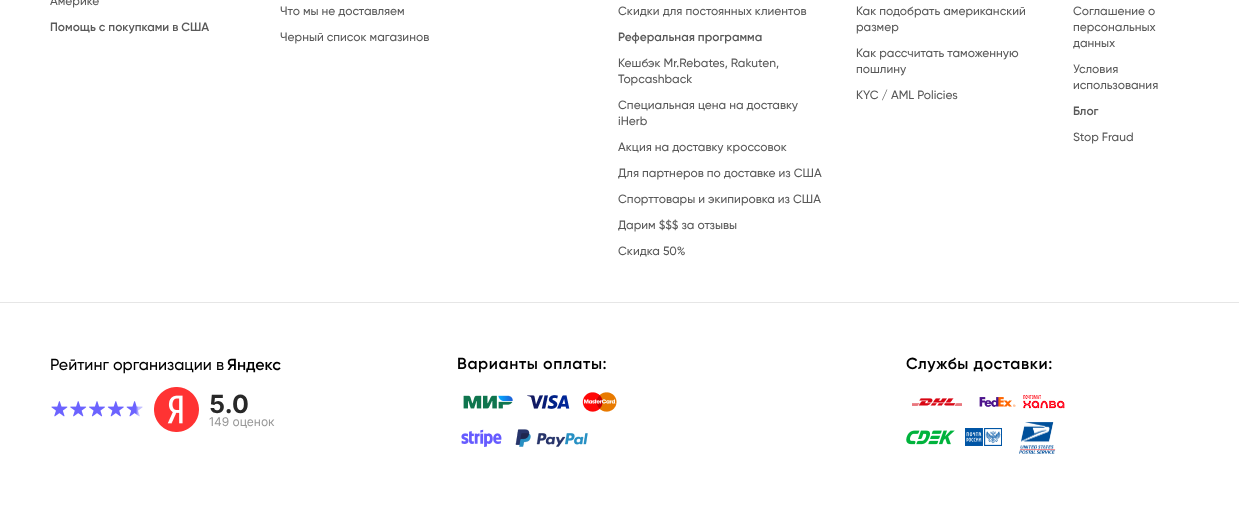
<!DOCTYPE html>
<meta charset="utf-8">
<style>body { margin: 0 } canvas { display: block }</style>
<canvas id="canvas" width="1239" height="511"></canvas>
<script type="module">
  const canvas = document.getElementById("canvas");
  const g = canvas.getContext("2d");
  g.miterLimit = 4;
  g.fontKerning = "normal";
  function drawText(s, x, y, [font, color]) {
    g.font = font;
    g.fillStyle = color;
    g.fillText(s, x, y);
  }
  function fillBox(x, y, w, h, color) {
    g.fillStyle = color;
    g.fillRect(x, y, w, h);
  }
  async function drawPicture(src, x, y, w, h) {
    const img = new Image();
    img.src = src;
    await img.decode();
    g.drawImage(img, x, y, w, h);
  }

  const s1 = ["500 12px Gilroy", "#595959"];
  const s2 = ["600 12px Gilroy", "#595959"];
  const s3 = ["500 16px Gilroy", "#000000"];
  const s4 = ["600 16px Gilroy", "#000000"];
  const s5 = ["bold 25px Inter", "#282828"];
  const s6 = ["12px Inter", "#989898"];

  fillBox(0, 0, 1239, 511, "#FFFFFF");
  drawText("Америке", 50, 5, s1);
  drawText("Помощь с покупками в США", 50, 31, s2);
  drawText("Что мы не доставляем", 280, 15, s1);
  drawText("Черный список магазинов", 280, 41, s1);
  drawText("Скидки для постоянных клиентов", 618, 15, s1);
  drawText("Реферальная программа", 618, 41, s2);
  drawText("Кешбэк Mr.Rebates, Rakuten,", 618, 67, s1);
  drawText("Topcashback", 618, 83, s1);
  drawText("Специальная цена на доставку", 618, 109, s1);
  drawText("iHerb", 618, 125, s1);
  drawText("Акция на доставку кроссовок", 618, 151, s1);
  drawText("Для партнеров по доставке из США", 618, 177, s1);
  drawText("Спорттовары и экипировка из США", 618, 203, s1);
  drawText("Дарим $$$ за отзывы", 618, 229, s1);
  drawText("Скидка 50%", 618, 255, s1);
  drawText("Как подобрать американский", 856, 15, s1);
  drawText("размер", 856, 31, s1);
  drawText("Как рассчитать таможенную", 856, 57, s1);
  drawText("пошлину", 856, 73, s1);
  drawText("KYC / AML Policies", 856, 99, s1);
  drawText("Соглашение о", 1073, 15, s1);
  drawText("персональных", 1073, 31, s1);
  drawText("данных", 1073, 47, s1);
  drawText("Условия", 1073, 73, s1);
  drawText("использования", 1073, 89, s1);
  drawText("Блог", 1073, 115, s2);
  drawText("Stop Fraud", 1073, 141, s1);
  fillBox(0, 302, 1239, 1, "#E6E6E6");
  drawText("Рейтинг организации в", 50, 370, s3);
  drawText("Яндекс", 227, 370, s4);
  await drawPicture("pic1.png", 51, 401, 92, 16);
  await drawPicture("pic2.png", 154, 387, 45, 45);
  drawText("5.0", 209, 413, s5);
  drawText("149 оценок", 209, 426, s6);
  g.letterSpacing = "0.6px";
  drawText("Варианты оплаты:", 457, 369, s4);
  await drawPicture("pic3.png", 463, 395, 50, 14);
  await drawPicture("pic4.png", 527, 395, 43, 14);
  await drawPicture("pic5.png", 582, 392, 35, 20);
  await drawPicture("pic6.png", 461, 429, 41, 18);
  await drawPicture("pic7.png", 515, 429, 73, 18);
  drawText("Службы доставки:", 906, 369, s4);
  await drawPicture("pic8.png", 912, 398, 50, 8);
  await drawPicture("pic9.png", 979, 397, 37, 10);
  await drawPicture("pic10.png", 1023, 395, 42, 14);
  await drawPicture("pic11.png", 906, 430, 49, 15);
  await drawPicture("pic12.png", 965, 428, 37, 18);
  await drawPicture("pic13.png", 1019, 422, 37, 32);
</script>
